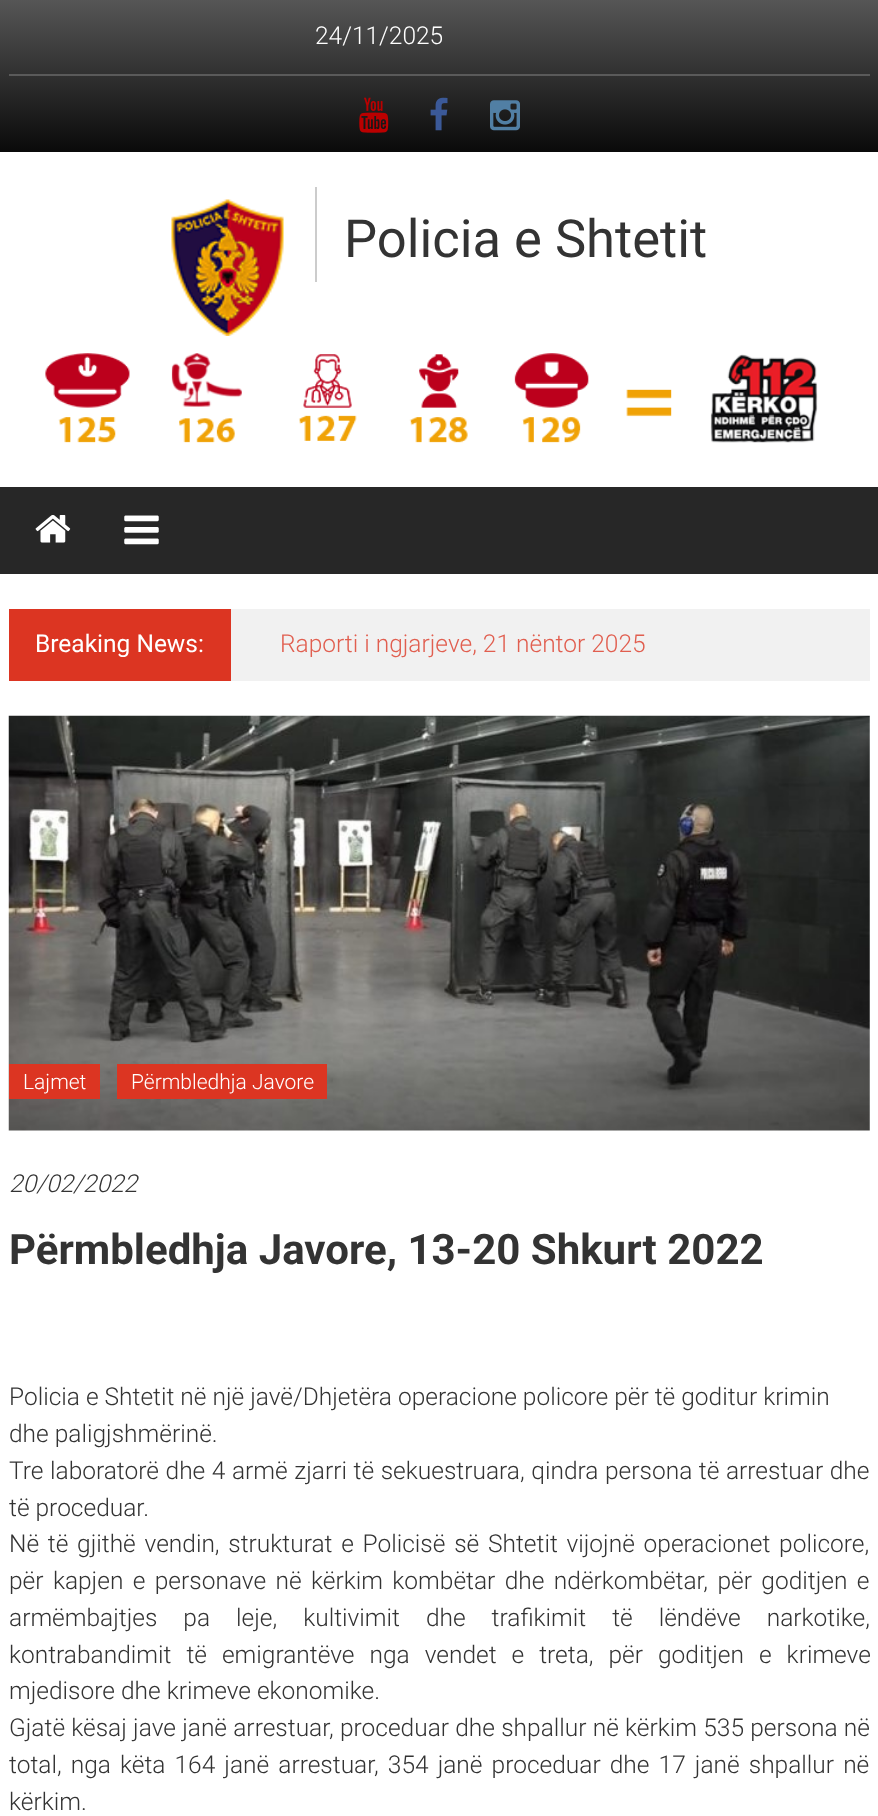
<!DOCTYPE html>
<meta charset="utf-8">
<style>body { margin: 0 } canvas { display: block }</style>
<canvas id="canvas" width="878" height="1816"></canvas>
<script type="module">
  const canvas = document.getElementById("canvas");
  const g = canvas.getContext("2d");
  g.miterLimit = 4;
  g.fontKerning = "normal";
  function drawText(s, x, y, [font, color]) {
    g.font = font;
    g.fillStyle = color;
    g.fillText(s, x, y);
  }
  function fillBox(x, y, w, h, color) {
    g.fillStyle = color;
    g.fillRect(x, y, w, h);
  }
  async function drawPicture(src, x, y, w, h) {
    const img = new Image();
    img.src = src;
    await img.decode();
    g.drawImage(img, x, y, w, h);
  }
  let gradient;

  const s1 = ["300 24.5px Roboto", "#FFFFFF"];
  const s2 = ["52.5px Roboto", "#333333"];
  const s3 = ["24.5px Roboto", "#FFFFFF"];
  const s4 = ["300 24.5px Roboto", "#E15E4F"];
  const s5 = ["300 21px Roboto", "#FFFFFF"];
  const s6 = ["italic 300 24.5px Roboto", "#333333"];
  const s7 = ["bold 42px Roboto", "#333333"];
  const s8 = ["300 24.5px Roboto", "#333333"];

  fillBox(0, 0, 878, 1816, "#FFFFFF");
  gradient = g.createLinearGradient(439, 0, 439, 152);
  gradient.addColorStop(0, "#565656");
  gradient.addColorStop(1, "#0A0A0A");
  g.fillStyle = gradient;
  g.fillRect(0, 0, 878, 152);
  drawText("24/11/2025", 315, 44, s1);
  fillBox(9, 74, 861, 2, "#5A5A5A");
  await drawPicture("pic1.png", 359, 97, 30, 36);
  await drawPicture("pic2.png", 430, 97, 18, 34);
  await drawPicture("pic3.png", 490, 100, 30, 31);
  await drawPicture("pic4.png", 171, 199, 113, 137);
  fillBox(315, 187, 2, 95, "#CCCCCC");
  drawText("Policia e Shtetit", 344, 257, s2);
  await drawPicture("pic5.png", 45, 353, 773, 90);
  fillBox(0, 487, 878, 87, "#272727");
  await drawPicture("pic6.png", 35, 515, 36, 28);
  await drawPicture("pic7.png", 124, 515, 35, 30);
  fillBox(231, 609, 639, 72, "#F1F1F1");
  fillBox(9, 609, 222, 72, "#DC3522");
  drawText("Breaking News:", 35, 652, s3);
  drawText("Raporti i ngjarjeve, 21 nëntor 2025", 280, 652, s4);
  await drawPicture("pic8.png", 8, 715, 862, 416);
  fillBox(9, 1064, 91, 35, "#DC3522");
  drawText("Lajmet", 23, 1089, s5);
  fillBox(117, 1064, 210, 35, "#DC3522");
  drawText("Përmbledhja Javore", 131, 1089, s5);
  drawText("20/02/2022", 9, 1192, s6);
  drawText("Përmbledhja Javore, 13-20 Shkurt 2022", 9, 1264, s7);
  drawText("Policia e Shtetit në një javë/Dhjetëra operacione policore për të goditur krimin", 9, 1405, s8);
  drawText("dhe paligjshmërinë.", 9, 1442, s8);
  g.wordSpacing = "0.6px";
  drawText("Tre laboratorë dhe 4 armë zjarri të sekuestruara, qindra persona të arrestuar dhe", 9, 1479, s8);
  g.wordSpacing = "0px";
  drawText("të proceduar.", 9, 1516, s8);
  g.wordSpacing = "2.75px";
  drawText("Në të gjithë vendin, strukturat e Policisë së Shtetit vijojnë operacionet policore,", 9, 1552, s8);
  g.wordSpacing = "3.4px";
  drawText("për kapjen e personave në kërkim kombëtar dhe ndërkombëtar, për goditjen e", 9, 1589, s8);
  g.wordSpacing = "20px";
  drawText("armëmbajtjes pa leje, kultivimit dhe trafikimit të lëndëve narkotike,", 9, 1626, s8);
  g.wordSpacing = "9px";
  drawText("kontrabandimit të emigrantëve nga vendet e treta, për goditjen e krimeve", 9, 1663, s8);
  g.wordSpacing = "0px";
  drawText("mjedisore dhe krimeve ekonomike.", 9, 1699, s8);
  g.wordSpacing = "0.25px";
  drawText("Gjatë kësaj jave janë arrestuar, proceduar dhe shpallur në kërkim 535 persona në", 9, 1736, s8);
  g.wordSpacing = "3.1px";
  drawText("total, nga këta 164 janë arrestuar, 354 janë proceduar dhe 17 janë shpallur në", 9, 1773, s8);
  g.wordSpacing = "0px";
  drawText("kërkim.", 9, 1810, s8);
</script>
